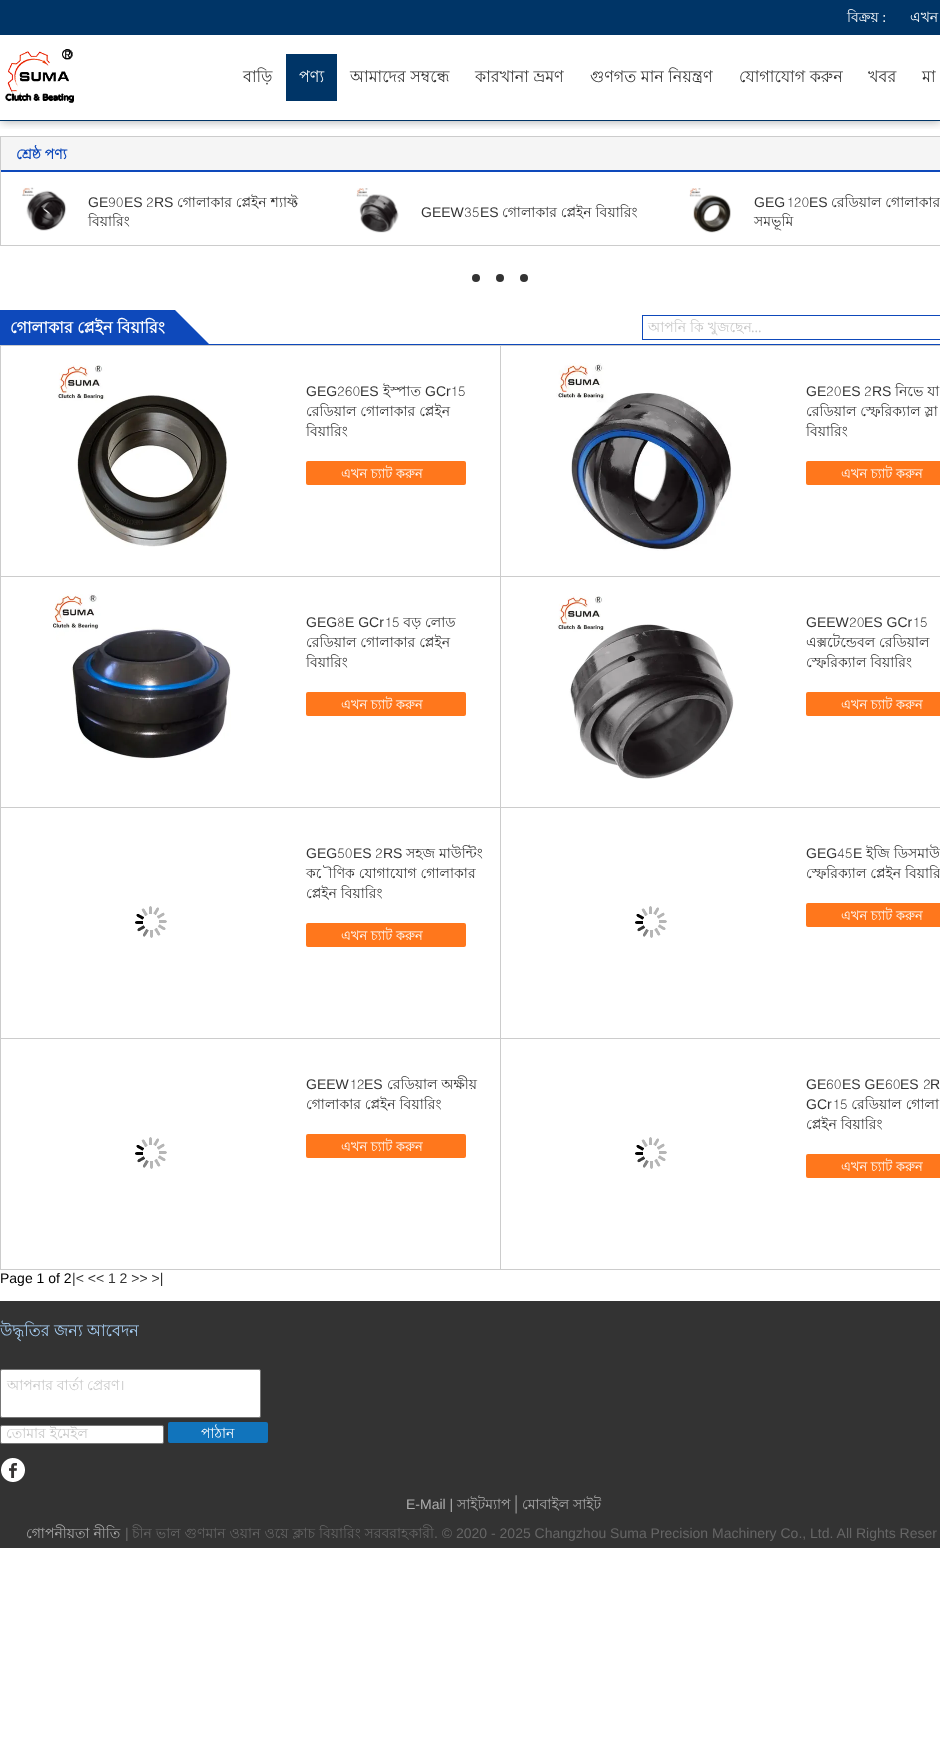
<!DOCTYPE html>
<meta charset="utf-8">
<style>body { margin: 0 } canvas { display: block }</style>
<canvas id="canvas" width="940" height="1738"></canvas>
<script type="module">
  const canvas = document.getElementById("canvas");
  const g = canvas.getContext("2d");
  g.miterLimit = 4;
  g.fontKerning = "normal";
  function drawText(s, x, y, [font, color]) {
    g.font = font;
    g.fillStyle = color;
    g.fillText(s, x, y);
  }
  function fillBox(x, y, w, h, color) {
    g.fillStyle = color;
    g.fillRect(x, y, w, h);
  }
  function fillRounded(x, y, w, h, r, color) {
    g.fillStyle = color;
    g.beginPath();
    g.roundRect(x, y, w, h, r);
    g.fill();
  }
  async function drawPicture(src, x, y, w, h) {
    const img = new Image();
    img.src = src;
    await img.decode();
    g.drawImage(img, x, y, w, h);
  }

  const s1 = ["14px Lohit Bengali", "#FFFFFF"];
  const s2 = ["16px Lohit Bengali", "#333333"];
  const s3 = ["16px Lohit Bengali", "#FFFFFF"];
  const s4 = ["bold 14px Lohit Bengali", "#0E49BB"];
  const s5 = ["14px Liberation Sans", "#333333"];
  const s6 = ["14px Lohit Bengali", "#333333"];
  const s7 = ["bold 16px Lohit Bengali", "#FFFFFF"];
  const s8 = ["14px Lohit Bengali", "#C7C7C7"];
  const s9 = ["14px Liberation Serif", "#C7C7C7"];
  const s10 = ["13px Lohit Bengali", "#FFFFFF"];
  const s11 = ["14px Liberation Sans", "#000000"];
  const s12 = ["16px Lohit Bengali", "#A7CEF3"];
  const s13 = ["14px Liberation Sans", "#ADADAD"];
  const s14 = ["14px Lohit Bengali", "#ADADAD"];
  const s15 = ["14px Liberation Sans", "#666666"];
  const s16 = ["14px Lohit Bengali", "#666666"];

  fillBox(0, 0, 940, 1738, "#FFFFFF");
  g.strokeStyle = "#CCCCCC";
  g.strokeRect(0.5, 136.5, 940, 109);
  fillBox(1, 137, 939, 33, "#F5F5F5");
  g.save();
  g.beginPath();
  g.rect(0, 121, 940, 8);
  g.clip();
  g.fillStyle = "rgba(0, 0, 0, 0.3)";
  g.filter = "blur(5px)";
  g.beginPath();
  g.rect(1, 1, 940, 121);
  g.fill();
  g.filter = "none";
  g.restore();
  fillBox(0, 120, 940, 1, "#003567");
  fillBox(0, 0, 940, 35, "#003567");
  g.wordSpacing = "-1px";
  drawText("বিক্রয় :", 847, 22, s1);
  g.wordSpacing = "0px";
  drawText("এখন", 910, 22, s1);
  await drawPicture("pic1.png", 5, 49, 69, 54);
  drawText("বাড়ি", 243, 82, s2);
  fillBox(286, 54, 51, 47, "#003567");
  drawText("পণ্য", 299, 82, s3);
  drawText("আমাদের সম্বন্ধে", 350, 82, s2);
  drawText("কারখানা ভ্রমণ", 475, 82, s2);
  drawText("গুণগত মান নিয়ন্ত্রণ", 590, 82, s2);
  drawText("যোগাযোগ করুন", 739, 82, s2);
  drawText("খবর", 868, 82, s2);
  drawText("মা", 922, 82, s2);
  fillBox(1, 170, 939, 2, "#0E49BB");
  drawText("শ্রেষ্ঠ পণ্য", 16, 159, s4);
  await drawPicture("pic2.png", 22, 187, 45, 44);
  drawText("GE", 88, 207, s5);
  drawText("90", 108, 207, s6);
  drawText("ES", 124, 207, s5);
  drawText("2", 146, 207, s6);
  drawText("RS", 154, 207, s5);
  drawText("গোলাকার প্লেইন শ্যাফ্ট", 177, 207, s6);
  drawText("বিয়ারিং", 88, 226, s6);
  await drawPicture("pic3.png", 356, 188, 43, 45);
  drawText("GEEW", 421, 217, s5);
  drawText("35", 464, 217, s6);
  drawText("ES", 480, 217, s5);
  drawText("গোলাকার প্লেইন বিয়ারিং", 502, 217, s6);
  await drawPicture("pic4.png", 689, 188, 42, 45);
  drawText("GEG", 754, 207, s5);
  drawText("120", 786, 207, s6);
  drawText("ES", 809, 207, s5);
  drawText("রেডিয়াল গোলাকার", 831, 207, s6);
  drawText("সমভূমি", 754, 226, s6);
  g.beginPath();
  g.arc(476, 278, 4, 0, Math.PI * 2);
  g.fill();
  g.beginPath();
  g.arc(500, 278, 4, 0, Math.PI * 2);
  g.fill();
  g.beginPath();
  g.arc(524, 278, 4, 0, Math.PI * 2);
  g.fill();
  fillBox(209, 344, 731, 1, "#0E49BB");
  fillBox(0, 310, 175, 35, "#0E49BB");
  drawText("গোলাকার প্লেইন বিয়ারিং", 10, 333, s7);
  g.fillStyle = "#0E49BB";
  g.beginPath();
  g.moveTo(210, 345);
  g.lineTo(175, 345);
  g.lineTo(175, 310);
  g.closePath();
  g.fill();
  g.strokeStyle = "#0E49BB";
  g.strokeRect(642.5, 315.5, 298, 24);
  drawText("আপনি কি খুজছেন", 648, 332, s8);
  drawText("...", 751, 332, s9);
  fillBox(0, 345, 940, 1, "#CCCCCC");
  fillBox(0, 576, 940, 1, "#CCCCCC");
  fillBox(0, 346, 1, 231, "#CCCCCC");
  await drawPicture("pic5.png", 57, 365, 170, 182);
  drawText("GEG", 306, 396, s5);
  drawText("260", 337, 396, s6);
  drawText("ES", 360, 396, s5);
  drawText("ইস্পাত", 383, 396, s6);
  drawText("GCr", 425, 396, s5);
  drawText("15", 450, 396, s6);
  drawText("রেডিয়াল গোলাকার প্লেইন", 306, 416, s6);
  drawText("বিয়ারিং", 306, 436, s6);
  fillRounded(306, 461, 160, 24, 2, "#FF771C");
  drawText("এখন চ্যাট করুন", 341, 478, s10);
  fillBox(500, 346, 1, 231, "#CCCCCC");
  await drawPicture("pic6.png", 556, 363, 176, 188);
  drawText("GE", 806, 396, s5);
  drawText("20", 826, 396, s6);
  drawText("ES", 842, 396, s5);
  drawText("2", 864, 396, s6);
  drawText("RS", 872, 396, s5);
  drawText("নিভে যা", 895, 396, s6);
  drawText("রেডিয়াল স্ফেরিক্যাল স্লা", 806, 416, s6);
  drawText("বিয়ারিং", 806, 436, s6);
  fillRounded(806, 461, 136, 24, 2, "#FF771C");
  drawText("এখন চ্যাট করুন", 841, 478, s10);
  fillBox(0, 807, 940, 1, "#CCCCCC");
  fillBox(0, 577, 1, 231, "#CCCCCC");
  await drawPicture("pic7.png", 53, 594, 178, 166);
  drawText("GEG", 306, 627, s5);
  drawText("8", 337, 627, s6);
  drawText("E GCr", 345, 627, s5);
  drawText("15 বড় লোড", 384, 627, s6);
  drawText("রেডিয়াল গোলাকার প্লেইন", 306, 647, s6);
  drawText("বিয়ারিং", 306, 667, s6);
  fillRounded(306, 692, 160, 24, 2, "#FF771C");
  drawText("এখন চ্যাট করুন", 341, 709, s10);
  fillBox(500, 577, 1, 231, "#CCCCCC");
  await drawPicture("pic8.png", 557, 596, 177, 183);
  drawText("GEEW", 806, 627, s5);
  drawText("20", 849, 627, s6);
  drawText("ES GCr", 864, 627, s5);
  drawText("15", 912, 627, s6);
  drawText("এক্সটেন্ডেবল রেডিয়াল", 806, 647, s6);
  drawText("স্ফেরিক্যাল বিয়ারিং", 806, 667, s6);
  fillRounded(806, 692, 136, 24, 2, "#FF771C");
  drawText("এখন চ্যাট করুন", 841, 709, s10);
  fillBox(0, 1038, 940, 1, "#CCCCCC");
  fillBox(0, 808, 1, 231, "#CCCCCC");
  await drawPicture("pic9.png", 135, 906, 32, 32);
  drawText("GEG", 306, 858, s5);
  drawText("50", 337, 858, s6);
  drawText("ES", 353, 858, s5);
  drawText("2", 375, 858, s6);
  drawText("RS", 383, 858, s5);
  drawText("সহজ মাউন্টিং", 406, 858, s6);
  drawText("কৌণিক যোগাযোগ গোলাকার", 306, 878, s6);
  drawText("প্লেইন বিয়ারিং", 306, 898, s6);
  fillRounded(306, 923, 160, 24, 2, "#FF771C");
  drawText("এখন চ্যাট করুন", 341, 940, s10);
  fillBox(500, 808, 1, 231, "#CCCCCC");
  await drawPicture("pic9.png", 635, 906, 32, 32);
  drawText("GEG", 806, 858, s5);
  drawText("45", 837, 858, s6);
  drawText("E", 853, 858, s5);
  drawText("ইজি ডিসমাউ", 866, 858, s6);
  drawText("স্ফেরিক্যাল প্লেইন বিয়ারিং", 806, 878, s6);
  fillRounded(806, 903, 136, 24, 2, "#FF771C");
  drawText("এখন চ্যাট করুন", 841, 920, s10);
  fillBox(0, 1269, 940, 1, "#CCCCCC");
  fillBox(0, 1039, 1, 231, "#CCCCCC");
  await drawPicture("pic9.png", 135, 1137, 32, 32);
  drawText("GEEW", 306, 1089, s5);
  drawText("12", 349, 1089, s6);
  drawText("ES", 364, 1089, s5);
  drawText("রেডিয়াল অক্ষীয়", 387, 1089, s6);
  drawText("গোলাকার প্লেইন বিয়ারিং", 306, 1109, s6);
  fillRounded(306, 1134, 160, 24, 2, "#FF771C");
  drawText("এখন চ্যাট করুন", 341, 1151, s10);
  fillBox(500, 1039, 1, 231, "#CCCCCC");
  await drawPicture("pic9.png", 635, 1137, 32, 32);
  drawText("GE", 806, 1089, s5);
  drawText("60", 826, 1089, s6);
  drawText("ES GE", 842, 1089, s5);
  drawText("60", 885, 1089, s6);
  drawText("ES", 900, 1089, s5);
  drawText("2", 923, 1089, s6);
  drawText("R", 930, 1089, s5);
  drawText("GCr", 806, 1109, s5);
  drawText("15 রেডিয়াল গোলা", 832, 1109, s6);
  drawText("প্লেইন বিয়ারিং", 806, 1129, s6);
  fillRounded(806, 1154, 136, 24, 2, "#FF771C");
  drawText("এখন চ্যাট করুন", 841, 1171, s10);
  drawText("Page 1 of 2", 0, 1283, s11);
  drawText("|< << 1 2 >> >|", 72, 1283, s5);
  fillBox(0, 1301, 940, 247, "#333333");
  drawText("উদ্ধৃতির জন্য আবেদন", 0, 1336, s12);
  g.fillStyle = "#FFFFFF";
  g.beginPath();
  g.roundRect(0.5, 1369.5, 260, 48, 1.5);
  g.fill();
  g.strokeStyle = "#767676";
  g.stroke();
  drawText("আপনার বার্তা প্রেরণ।", 7, 1390, s8);
  g.fillStyle = "#FFFFFF";
  g.beginPath();
  g.roundRect(0.5, 1425.5, 163, 18, 1.5);
  g.fill();
  g.stroke();
  g.save();
  g.beginPath();
  g.roundRect(1, 1426, 162, 17, 1);
  g.clip();
  drawText("তোমার ইমেইল", 6, 1438, s8);
  g.restore();
  fillRounded(168, 1422, 100, 21, 2, "#1174BC");
  drawText("পাঠান", 201, 1438, s1);
  await drawPicture("pic10.png", 1, 1458, 24, 24);
  drawText("E-Mail |", 406, 1509, s13);
  drawText("সাইটম্যাপ", 457, 1509, s14);
  drawText("| মোবাইল সাইট", 514, 1509, s14);
  drawText("গোপনীয়তা নীতি", 26, 1538, s14);
  drawText("|", 125, 1538, s15);
  drawText("চীন ভাল গুণমান ওয়ান ওয়ে ক্লাচ বিয়ারিং সরবরাহকারী", 132, 1538, s16);
  drawText(". © 2020 - 2025 Changzhou Suma Precision Machinery Co., Ltd. All Rights Reser", 434, 1538, s15);
</script>
